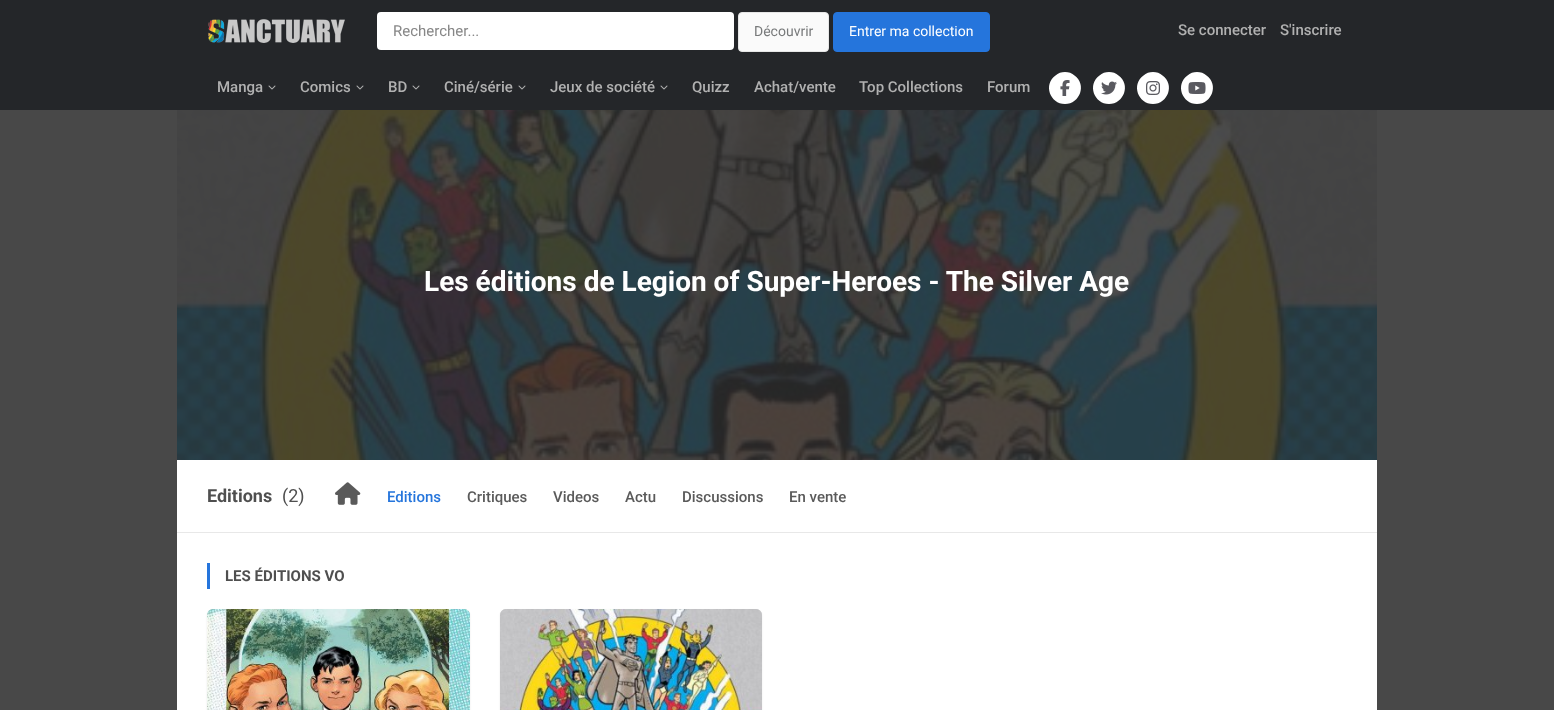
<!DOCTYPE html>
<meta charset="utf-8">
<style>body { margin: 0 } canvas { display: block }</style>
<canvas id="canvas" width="1554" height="710"></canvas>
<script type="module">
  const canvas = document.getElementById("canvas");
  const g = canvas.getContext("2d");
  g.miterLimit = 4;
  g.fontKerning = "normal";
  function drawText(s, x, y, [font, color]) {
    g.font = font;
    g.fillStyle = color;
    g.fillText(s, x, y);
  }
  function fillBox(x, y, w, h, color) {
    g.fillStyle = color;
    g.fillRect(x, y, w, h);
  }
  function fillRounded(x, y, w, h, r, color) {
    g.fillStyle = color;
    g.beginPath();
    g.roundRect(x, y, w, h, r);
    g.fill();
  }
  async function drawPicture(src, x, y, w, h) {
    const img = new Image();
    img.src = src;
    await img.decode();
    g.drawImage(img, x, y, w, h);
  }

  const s1 = ["15px Roboto", "#878787"];
  const s2 = ["14px Roboto", "#787A7B"];
  const s3 = ["14px Roboto", "#FFFFFF"];
  const s4 = ["500 15px Roboto", "#B1B1B1"];
  const s5 = ["bold 28px Roboto", "#FFFFFF"];
  const s6 = ["bold 18px Roboto", "#4F4F4F"];
  const s7 = ["18px Roboto", "#4F4F4F"];
  const s8 = ["500 15px Roboto", "#2575DC"];
  const s9 = ["500 15px Roboto", "#5A5A5A"];
  const s10 = ["bold 15px Roboto", "#4F4F4F"];

  fillBox(0, 0, 1554, 710, "#484848");
  fillBox(0, 0, 1554, 110, "#242629");
  await drawPicture("pic1.png", 208, 19, 137, 24);
  fillRounded(377, 12, 357, 38, 4, "#FFFFFF");
  drawText("Rechercher...", 393, 36, s1);
  g.fillStyle = "#FAFAFA";
  g.beginPath();
  g.roundRect(738.5, 12.5, 90, 39, 3.5);
  g.fill();
  g.strokeStyle = "#E6E6E6";
  g.stroke();
  drawText("Découvrir", 754, 36, s2);
  g.fillStyle = "#2575DC";
  g.beginPath();
  g.roundRect(833.5, 12.5, 156, 39, 3.5);
  g.fill();
  g.strokeStyle = "#2575DC";
  g.stroke();
  drawText("Entrer ma collection", 849, 36, s3);
  drawText("Se connecter", 1178, 35, s4);
  drawText("S'inscrire", 1280, 35, s4);
  drawText("Manga", 217, 92, s4);
  await drawPicture("pic2.png", 268, 85, 8, 5);
  drawText("Comics", 300, 92, s4);
  await drawPicture("pic2.png", 356, 85, 8, 5);
  drawText("BD", 388, 92, s4);
  await drawPicture("pic2.png", 412, 85, 8, 5);
  drawText("Ciné/série", 444, 92, s4);
  await drawPicture("pic2.png", 518, 85, 8, 5);
  drawText("Jeux de société", 550, 92, s4);
  await drawPicture("pic2.png", 660, 85, 8, 5);
  drawText("Quizz", 692, 92, s4);
  drawText("Achat/vente", 754, 92, s4);
  drawText("Top Collections", 859, 92, s4);
  drawText("Forum", 987, 92, s4);
  g.fillStyle = "#FFFFFF";
  g.beginPath();
  g.moveTo(1065, 104);
  g.bezierCurveTo(1080, 104, 1087, 84.5, 1074.5, 75.5);
  g.bezierCurveTo(1072, 73, 1068.5, 72, 1065, 72);
  g.bezierCurveTo(1061.5, 72, 1058, 73, 1055.5, 75.5);
  g.bezierCurveTo(1043, 84.5, 1050, 104, 1065, 104);
  g.closePath();
  g.fill();
  await drawPicture("pic3.png", 1060, 80, 10, 16);
  g.beginPath();
  g.moveTo(1109, 104);
  g.bezierCurveTo(1124, 104, 1131, 84.5, 1118.5, 75.5);
  g.bezierCurveTo(1116, 73, 1112.5, 72, 1109, 72);
  g.bezierCurveTo(1105.5, 72, 1102, 73, 1099.5, 75.5);
  g.bezierCurveTo(1087, 84.5, 1094, 104, 1109, 104);
  g.closePath();
  g.fill();
  await drawPicture("pic4.png", 1101, 81, 16, 14);
  g.beginPath();
  g.moveTo(1153, 104);
  g.bezierCurveTo(1168, 104, 1175, 84.5, 1162.5, 75.5);
  g.bezierCurveTo(1160, 73, 1156.5, 72, 1153, 72);
  g.bezierCurveTo(1149.5, 72, 1146, 73, 1143.5, 75.5);
  g.bezierCurveTo(1131, 84.5, 1138, 104, 1153, 104);
  g.closePath();
  g.fill();
  await drawPicture("pic5.png", 1146, 81, 14, 14);
  g.beginPath();
  g.moveTo(1197, 104);
  g.bezierCurveTo(1212, 104, 1219, 84.5, 1206.5, 75.5);
  g.bezierCurveTo(1204, 73, 1200.5, 72, 1197, 72);
  g.bezierCurveTo(1193.5, 72, 1190, 73, 1187.5, 75.5);
  g.bezierCurveTo(1175, 84.5, 1182, 104, 1197, 104);
  g.closePath();
  g.fill();
  await drawPicture("pic6.png", 1188, 82, 18, 12);
  fillBox(177, 460, 1200, 250, "#FFFFFF");
  await drawPicture("pic7.png", 177, 110, 1200, 350);
  drawText("Les éditions de Legion of Super-Heroes - The Silver Age", 424, 291, s5);
  fillBox(177, 532, 1200, 1, "#E8E8E8");
  drawText("Editions", 207, 502, s6);
  drawText("(2)", 282, 502, s7);
  await drawPicture("pic8.png", 335, 482, 26, 23);
  drawText("Editions", 387, 502, s8);
  drawText("Critiques", 467, 502, s9);
  drawText("Videos", 553, 502, s9);
  drawText("Actu", 625, 502, s9);
  drawText("Discussions", 682, 502, s9);
  drawText("En vente", 789, 502, s9);
  fillBox(207, 563, 3, 26, "#2575DC");
  drawText("LES ÉDITIONS VO", 225, 581, s10);
  g.fillStyle = "rgba(0, 0, 0, 0.07)";
  g.filter = "blur(1px)";
  g.beginPath();
  g.roundRect(207, 610, 263, 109, 6);
  g.fill();
  g.filter = "none";
  g.beginPath();
  g.roundRect(207.5, 609.5, 262, 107, 5.5);
  g.strokeStyle = "#DEDEDE";
  g.stroke();
  await drawPicture("pic9.png", 207, 609, 263, 101);
  g.filter = "blur(1px)";
  g.beginPath();
  g.roundRect(500, 610, 262, 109, 6);
  g.fill();
  g.filter = "none";
  g.beginPath();
  g.roundRect(500.5, 609.5, 261, 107, 5.5);
  g.stroke();
  await drawPicture("pic10.png", 500, 609, 262, 101);
</script>
